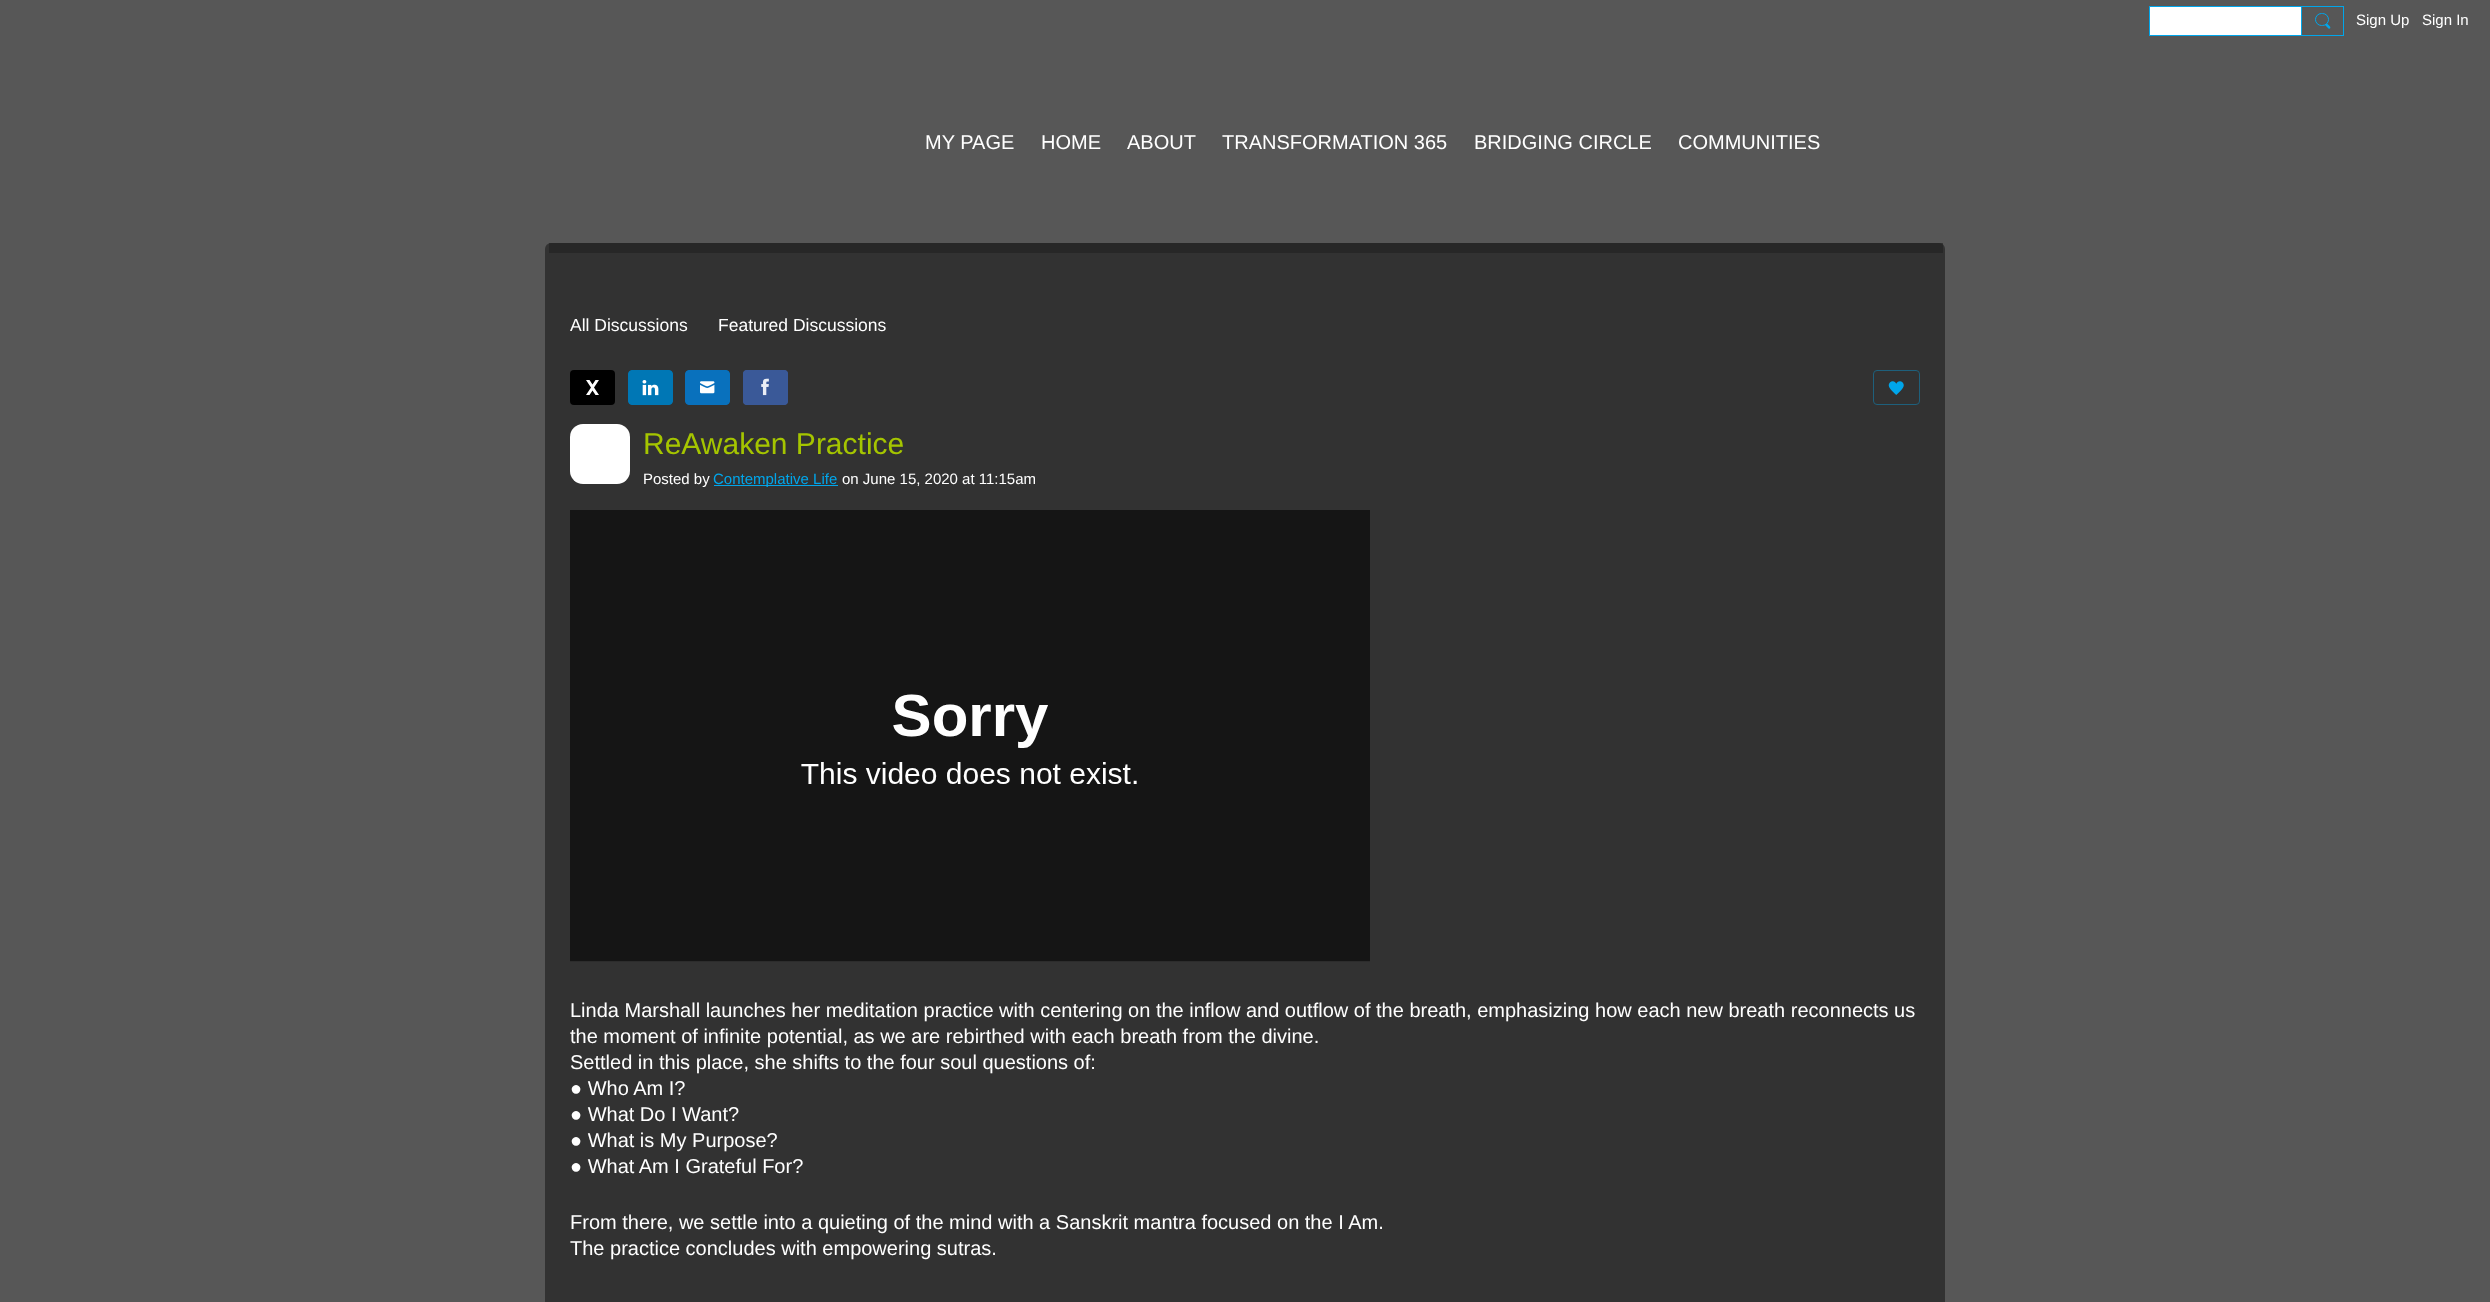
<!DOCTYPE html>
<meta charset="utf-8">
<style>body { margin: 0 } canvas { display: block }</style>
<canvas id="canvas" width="2490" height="1302"></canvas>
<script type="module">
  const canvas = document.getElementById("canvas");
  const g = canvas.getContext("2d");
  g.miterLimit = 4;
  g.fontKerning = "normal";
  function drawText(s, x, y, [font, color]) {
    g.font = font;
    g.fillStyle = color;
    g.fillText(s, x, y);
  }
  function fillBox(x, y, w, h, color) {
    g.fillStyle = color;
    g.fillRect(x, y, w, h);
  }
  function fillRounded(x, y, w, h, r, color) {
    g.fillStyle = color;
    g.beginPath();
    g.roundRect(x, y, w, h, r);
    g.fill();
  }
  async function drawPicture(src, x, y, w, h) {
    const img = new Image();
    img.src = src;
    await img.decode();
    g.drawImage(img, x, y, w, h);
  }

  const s1 = ["15px Liberation Sans", "#FFFFFF"];
  const s2 = ["20px Liberation Sans", "#FFFFFF"];
  const s3 = ["17.5px Liberation Sans", "#FFFFFF"];
  const s4 = ["30px Liberation Sans", "#A5C500"];
  const s5 = ["15px Liberation Sans", "#00A6EB"];

  fillBox(0, 0, 2490, 1302, "#575757");
  fillBox(2150, 7, 151, 28, "#FFFFFF");
  g.strokeStyle = "#00A6EB";
  g.strokeRect(2149.5, 6.5, 153, 29);
  fillBox(2302, 7, 1, 28, "#575757");
  g.strokeRect(2301.5, 6.5, 42, 29);
  g.beginPath();
  g.roundRect(2315.5, 13.5, 13, 12, 6);
  g.stroke();
  g.fillStyle = "#00A6EB";
  g.beginPath();
  g.moveTo(2327.5, 24);
  g.lineTo(2329.5, 26);
  g.bezierCurveTo(2331.5, 28, 2329.5, 29.5, 2328.5, 28.5);
  g.lineTo(2325.5, 25.5);
  g.bezierCurveTo(2325, 24.5, 2326.5, 23, 2327.5, 24);
  g.closePath();
  g.fill();
  drawText("Sign Up", 2356, 25, s1);
  drawText("Sign In", 2422, 25, s1);
  drawText("MY PAGE", 925, 149, s2);
  drawText("HOME", 1041, 149, s2);
  drawText("ABOUT", 1127, 149, s2);
  drawText("TRANSFORMATION 365", 1222, 149, s2);
  drawText("BRIDGING CIRCLE", 1474, 149, s2);
  drawText("COMMUNITIES", 1678, 149, s2);
  fillRounded(545, 243, 1400, 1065, 6, "#323232");
  fillBox(549, 243, 1394, 10, "rgba(31, 31, 31, 0.6)");
  drawText("All Discussions", 570, 331, s3);
  drawText("Featured Discussions", 718, 331, s3);
  fillRounded(570, 370, 45, 35, 4, "#000000");
  g.fillStyle = "#FFFFFF";
  g.beginPath();
  g.moveTo(586, 380);
  g.lineTo(591, 387.5);
  g.lineTo(586, 395);
  g.lineTo(589.5, 395);
  g.lineTo(592.5, 390.5);
  g.lineTo(595.5, 395);
  g.lineTo(599, 395);
  g.lineTo(594, 387.5);
  g.lineTo(599, 380);
  g.lineTo(595.5, 380);
  g.lineTo(592.5, 384.5);
  g.lineTo(589.5, 380);
  g.closePath();
  g.fill("evenodd");
  await drawPicture("pic1.png", 628, 370, 45, 35);
  await drawPicture("pic2.png", 685, 370, 45, 35);
  fillRounded(743, 370, 45, 35, 4, "#3B5998");
  await drawPicture("pic3.png", 743, 370, 45, 35);
  g.beginPath();
  g.roundRect(1873.5, 370.5, 46, 34, 3.5);
  g.strokeStyle = "#1E607C";
  g.stroke();
  await drawPicture("pic4.png", 1888, 381, 16, 14);
  fillRounded(570, 424, 60, 60, 13, "#FFFFFF");
  drawText("ReAwaken Practice", 643, 454, s4);
  drawText("Posted by", 643, 484, s1);
  fillBox(714, 485, 124, 1, "#00A6EB");
  drawText("Contemplative Life", 713, 484, s5);
  drawText("on June 15, 2020 at 11:15am", 842, 484, s1);
  await drawPicture("pic5.png", 570, 510, 800, 452);
  drawText("Linda Marshall launches her meditation practice with centering on the inflow and outflow of the breath, emphasizing how each new breath reconnects us", 570, 1017, s2);
  drawText("the moment of infinite potential, as we are rebirthed with each breath from the divine.", 570, 1043, s2);
  drawText("Settled in this place, she shifts to the four soul questions of:", 570, 1069, s2);
  drawText("● Who Am I?", 570, 1095, s2);
  drawText("● What Do I Want?", 570, 1121, s2);
  drawText("● What is My Purpose?", 570, 1147, s2);
  drawText("● What Am I Grateful For?", 570, 1173, s2);
  drawText("From there, we settle into a quieting of the mind with a Sanskrit mantra focused on the I Am.", 570, 1229, s2);
  drawText("The practice concludes with empowering sutras.", 570, 1255, s2);
</script>
